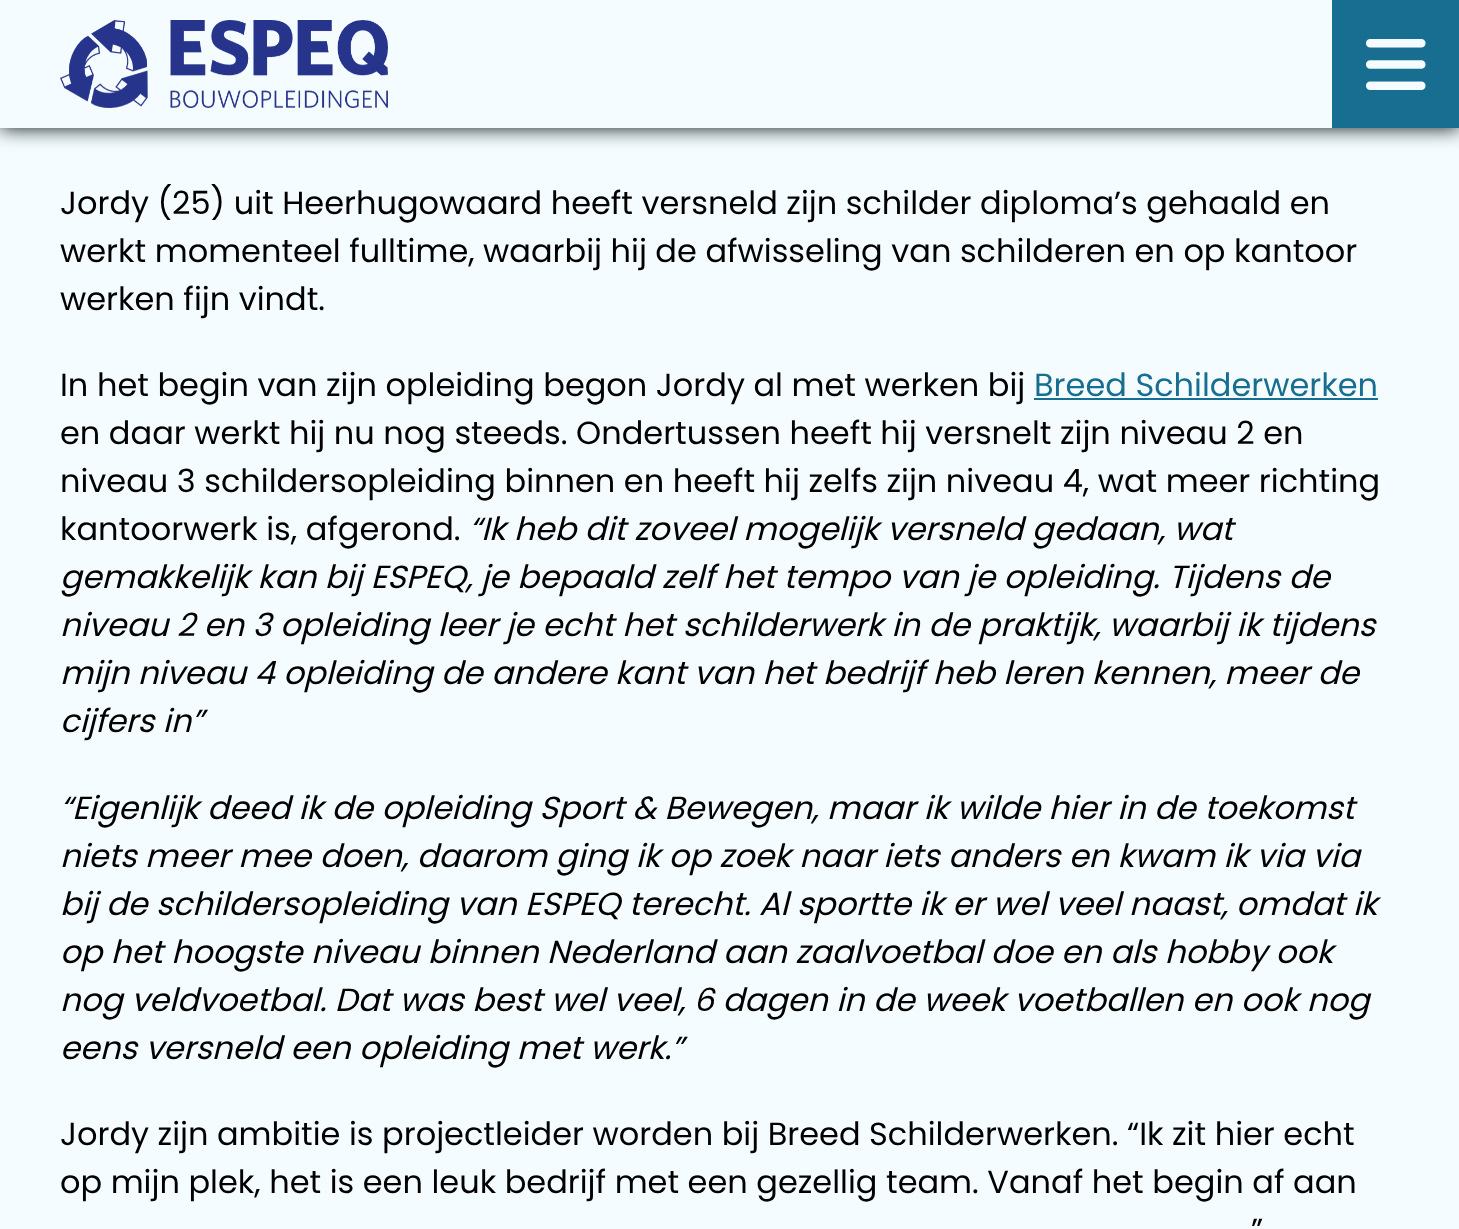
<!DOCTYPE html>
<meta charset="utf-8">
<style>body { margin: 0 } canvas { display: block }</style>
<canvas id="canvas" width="1459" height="1229"></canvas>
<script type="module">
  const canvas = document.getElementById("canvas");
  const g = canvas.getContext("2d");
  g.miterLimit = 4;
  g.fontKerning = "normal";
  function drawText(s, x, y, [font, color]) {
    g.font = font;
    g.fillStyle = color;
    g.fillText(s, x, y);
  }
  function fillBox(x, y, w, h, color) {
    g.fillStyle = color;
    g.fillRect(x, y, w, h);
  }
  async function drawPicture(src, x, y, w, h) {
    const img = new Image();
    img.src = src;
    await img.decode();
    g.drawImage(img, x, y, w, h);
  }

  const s1 = ["32px Poppins", "#000000"];
  const s2 = ["32px Poppins", "#186E90"];
  const s3 = ["italic 32px Poppins", "#000000"];

  fillBox(0, 0, 1459, 1229, "#F5FCFF");
  g.fillStyle = "#000F14";
  g.filter = "blur(10px)";
  g.beginPath();
  g.rect(0, 0, 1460, 128);
  g.fill();
  g.filter = "none";
  fillBox(0, 0, 1332, 128, "#F5FCFF");
  await drawPicture("pic1.png", 60, 20, 328, 88);
  fillBox(1332, 0, 127, 128, "#186E90");
  await drawPicture("pic2.png", 1366, 39, 60, 51);
  drawText("Jordy (25) uit Heerhugowaard heeft versneld zijn schilder diploma’s gehaald en", 60, 214, s1);
  drawText("werkt momenteel fulltime, waarbij hij de afwisseling van schilderen en op kantoor", 60, 262, s1);
  drawText("werken fijn vindt.", 60, 310, s1);
  drawText("In het begin van zijn opleiding begon Jordy al met werken bij", 60, 396, s1);
  drawText("Breed Schilderwerken", 1034, 396, s2);
  fillBox(1034, 398, 344, 2, "#186E90");
  drawText("en daar werkt hij nu nog steeds. Ondertussen heeft hij versnelt zijn niveau 2 en", 60, 444, s1);
  drawText("niveau 3 schildersopleiding binnen en heeft hij zelfs zijn niveau 4, wat meer richting", 60, 492, s1);
  drawText("kantoorwerk is, afgerond.", 60, 540, s1);
  drawText("“Ik heb dit zoveel mogelijk versneld gedaan, wat", 469, 540, s3);
  drawText("gemakkelijk kan bij ESPEQ, je bepaald zelf het tempo van je opleiding. Tijdens de", 60, 588, s3);
  drawText("niveau 2 en 3 opleiding leer je echt het schilderwerk in de praktijk, waarbij ik tijdens", 60, 636, s3);
  drawText("mijn niveau 4 opleiding de andere kant van het bedrijf heb leren kennen, meer de", 60, 684, s3);
  drawText("cijfers in”", 60, 732, s3);
  drawText("“Eigenlijk deed ik de opleiding Sport & Bewegen, maar ik wilde hier in de toekomst", 60, 819, s3);
  drawText("niets meer mee doen, daarom ging ik op zoek naar iets anders en kwam ik via via", 60, 867, s3);
  drawText("bij de schildersopleiding van ESPEQ terecht. Al sportte ik er wel veel naast, omdat ik", 60, 915, s3);
  drawText("op het hoogste niveau binnen Nederland aan zaalvoetbal doe en als hobby ook", 60, 963, s3);
  drawText("nog veldvoetbal. Dat was best wel veel, 6 dagen in de week voetballen en ook nog", 60, 1011, s3);
  drawText("eens versneld een opleiding met werk.”", 60, 1059, s3);
  drawText("Jordy zijn ambitie is projectleider worden bij Breed Schilderwerken. “Ik zit hier echt", 60, 1145, s1);
  drawText("op mijn plek, het is een leuk bedrijf met een gezellig team. Vanaf het begin af aan", 60, 1193, s1);
  drawText("”", 1251, 1241, s1);
</script>
